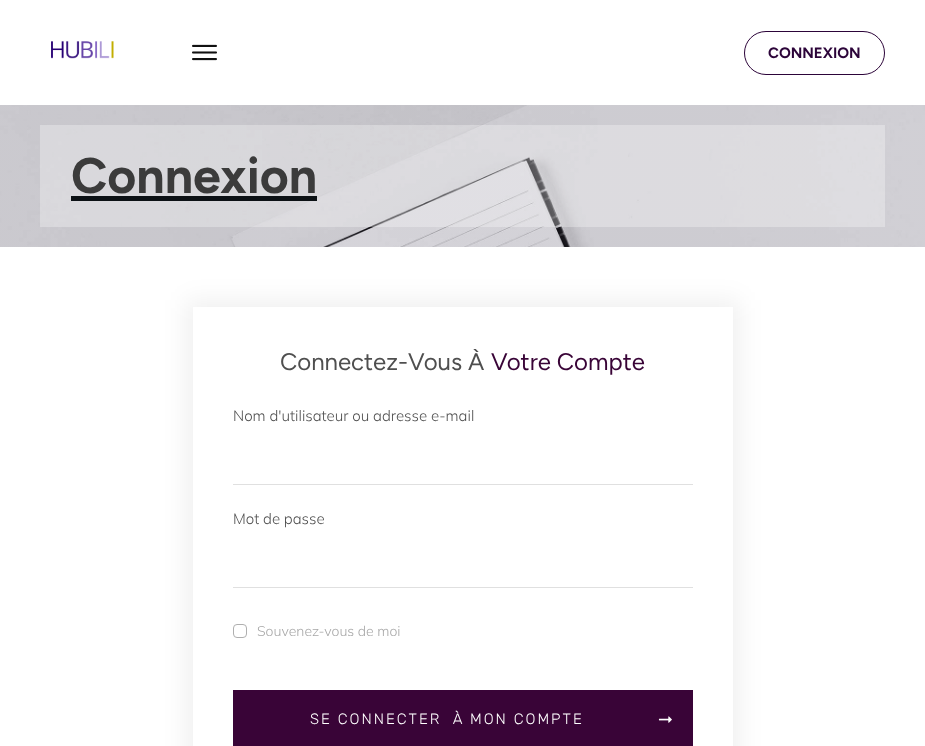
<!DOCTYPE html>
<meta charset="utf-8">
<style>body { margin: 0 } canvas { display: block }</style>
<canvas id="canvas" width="925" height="746"></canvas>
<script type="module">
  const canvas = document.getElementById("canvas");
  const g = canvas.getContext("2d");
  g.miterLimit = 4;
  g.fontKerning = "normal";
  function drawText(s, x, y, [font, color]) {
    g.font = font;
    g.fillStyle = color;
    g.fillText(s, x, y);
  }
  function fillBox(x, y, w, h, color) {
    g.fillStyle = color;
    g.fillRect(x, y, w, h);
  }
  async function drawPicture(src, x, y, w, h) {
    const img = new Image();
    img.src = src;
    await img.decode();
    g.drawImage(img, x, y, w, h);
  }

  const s1 = ["bold 15px Figtree", "#2C0439"];
  const s2 = ["bold 50px Figtree", "#3B3B3B"];
  const s3 = ["24px Figtree", "#4F4F4F"];
  const s4 = ["24px Figtree", "#390437"];
  const s5 = ["300 15px Mulish", "#4F4F4F"];
  const s6 = ["300 14px Mulish", "#A7A7A7"];
  const s7 = ["300 15px Rubik", "#FFFFFF"];

  fillBox(0, 0, 925, 746, "#FFFFFF");
  await drawPicture("pic1.png", 51, 41, 63, 18);
  await drawPicture("pic2.png", 192, 44, 25, 17);
  g.beginPath();
  g.roundRect(744.5, 31.5, 140, 43, 21.5);
  g.strokeStyle = "#2C0439";
  g.stroke();
  drawText("CONNEXION", 768, 58, s1);
  await drawPicture("pic3.png", 0, 105, 925, 142);
  fillBox(40, 125, 845, 102, "rgba(255, 255, 255, 0.3)");
  drawText("Connexion", 71, 193, s2);
  fillBox(71, 196, 246, 5, "#0C1115");
  g.save();
  g.beginPath();
  g.moveTo(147, 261);
  g.lineTo(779, 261);
  g.lineTo(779, 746);
  g.lineTo(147, 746);
  g.closePath();
  g.moveTo(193, 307);
  g.lineTo(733, 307);
  g.lineTo(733, 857);
  g.lineTo(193, 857);
  g.closePath();
  g.clip("evenodd");
  g.fillStyle = "rgba(0, 0, 0, 0.06)";
  g.filter = "blur(12.5px)";
  g.beginPath();
  g.rect(186, 300, 554, 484);
  g.fill();
  g.filter = "none";
  g.restore();
  drawText("Connectez-Vous À", 280, 370, s3);
  drawText("Votre Compte", 491, 370, s4);
  drawText("Nom d'utilisateur ou adresse e-mail", 233, 421, s5);
  fillBox(233, 484, 460, 1, "#E0E0E0");
  drawText("Mot de passe", 233, 524, s5);
  fillBox(233, 587, 460, 1, "#E0E0E0");
  g.beginPath();
  g.roundRect(233.5, 624.5, 13, 13, 3.5);
  g.strokeStyle = "#AFAFAF";
  g.stroke();
  drawText("Souvenez-vous de moi", 257, 636, s6);
  fillBox(233, 690, 460, 56, "#390437");
  g.letterSpacing = "2px";
  drawText("SE CONNECTER  À MON COMPTE", 310, 724, s7);
  await drawPicture("pic4.png", 658, 716, 14, 7);
</script>
